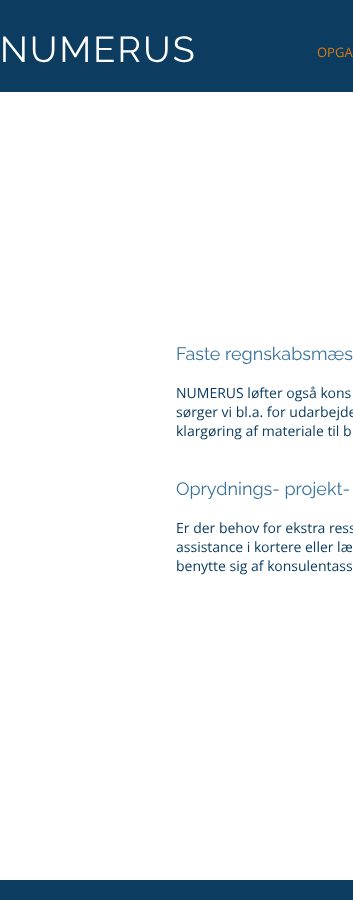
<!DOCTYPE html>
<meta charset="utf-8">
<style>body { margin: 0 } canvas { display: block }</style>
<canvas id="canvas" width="353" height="900"></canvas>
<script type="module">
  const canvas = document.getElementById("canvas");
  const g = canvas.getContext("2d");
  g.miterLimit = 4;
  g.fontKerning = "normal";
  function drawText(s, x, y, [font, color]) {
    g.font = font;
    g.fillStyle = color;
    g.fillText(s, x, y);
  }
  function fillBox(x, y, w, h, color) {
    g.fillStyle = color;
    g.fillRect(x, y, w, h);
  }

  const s1 = ["36px Raleway", "#FFFFFF"];
  const s2 = ["13px Open Sans", "#DB7B0D"];
  const s3 = ["18px Raleway", "#39729B"];
  const s4 = ["14px Open Sans", "#0C3C60"];

  fillBox(0, 0, 353, 900, "#FFFFFF");
  fillBox(0, 0, 353, 92, "#0C3C60");
  g.letterSpacing = "2.25px";
  drawText("NUMERUS", 0, 62, s1);
  g.letterSpacing = "0px";
  drawText("OPGA", 317, 57, s2);
  drawText("Faste regnskabsmæs", 176, 360, s3);
  drawText("NUMERUS løfter også kons", 176, 398, s4);
  drawText("sørger vi bl.a. for udarbejde", 176, 417, s4);
  drawText("klargøring af materiale til b", 176, 436, s4);
  drawText("Oprydnings- projekt-", 176, 495, s3);
  drawText("Er der behov for ekstra ress", 176, 533, s4);
  drawText("assistance i kortere eller læ", 176, 552, s4);
  drawText("benytte sig af konsulentass", 176, 571, s4);
  fillBox(0, 880, 353, 20, "#0C3C60");
</script>
